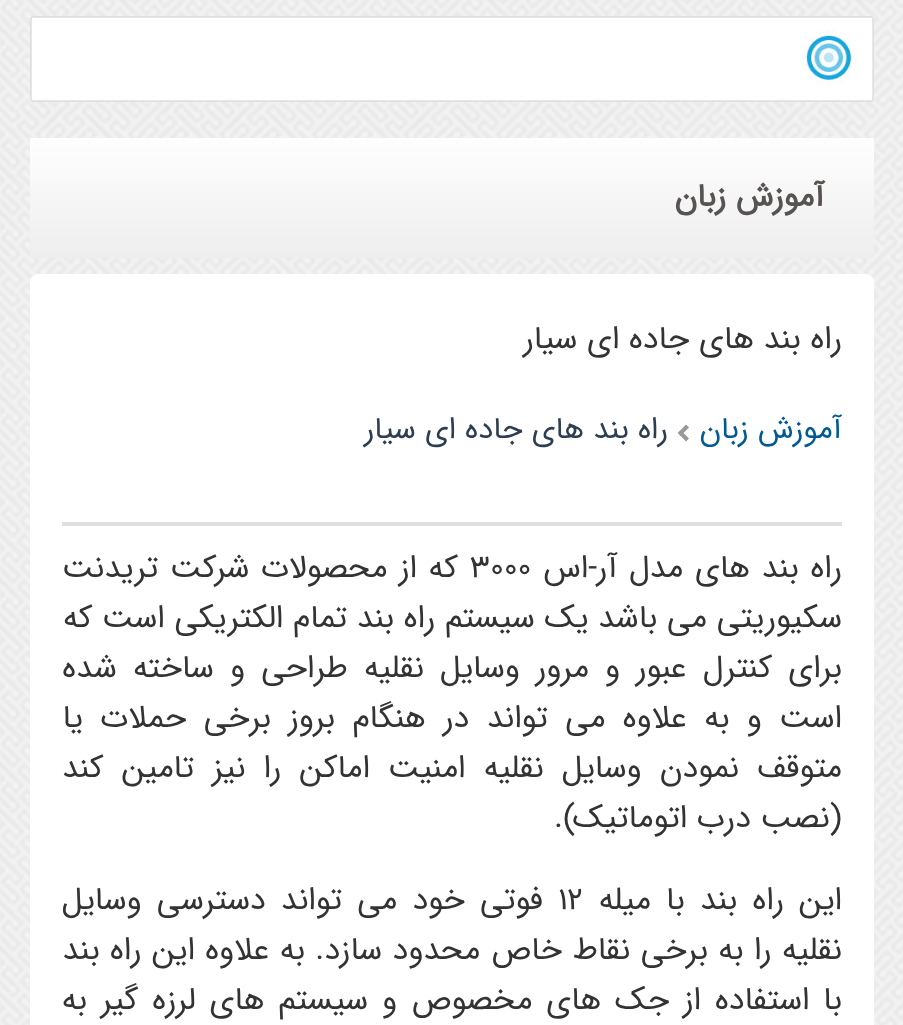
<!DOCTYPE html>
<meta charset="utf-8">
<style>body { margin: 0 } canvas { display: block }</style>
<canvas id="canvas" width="903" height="1025"></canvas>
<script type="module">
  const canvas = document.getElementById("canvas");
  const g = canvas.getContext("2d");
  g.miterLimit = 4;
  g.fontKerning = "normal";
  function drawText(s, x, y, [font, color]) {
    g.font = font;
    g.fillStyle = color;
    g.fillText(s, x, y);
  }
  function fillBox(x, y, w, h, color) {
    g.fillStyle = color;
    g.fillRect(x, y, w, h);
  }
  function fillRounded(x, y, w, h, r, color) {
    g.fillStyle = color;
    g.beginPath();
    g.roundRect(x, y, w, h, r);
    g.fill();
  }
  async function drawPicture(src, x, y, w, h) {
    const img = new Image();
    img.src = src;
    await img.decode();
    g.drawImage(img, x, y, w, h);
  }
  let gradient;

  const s1 = ["bold 32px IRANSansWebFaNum", "#575351"];
  const s2 = ["32px IRANSansWebFaNum", "#333333"];
  const s3 = ["30.5px IRANSansWebFaNum", "#005A96"];
  const s4 = ["30.5px IRANSansWebFaNum", "#2C3E50"];

  fillBox(0, 0, 903, 1025, "#FFFFFF");
  await drawPicture("pic1.png", 0, 0, 903, 1025);
  await drawPicture("pic2.png", 30, 16, 844, 86);
  gradient = g.createLinearGradient(452, 138, 452, 258);
  gradient.addColorStop(0, "#FEFEFE");
  gradient.addColorStop(1, "#EEEEEE");
  g.fillStyle = gradient;
  g.fillRect(30, 138, 844, 120);
  g.direction = "rtl";
  drawText("آموزش زبان", 824, 206, s1);
  fillRounded(30, 274, 844, 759, 8, "#FFFFFF");
  fillBox(62, 522, 780, 4, "#E0E0E0");
  drawText("راه بند های جاده ای سیار", 842, 348, s2);
  drawText("آموزش زبان", 842, 438, s3);
  g.fillStyle = "#999999";
  g.beginPath();
  g.moveTo(680.5, 430);
  g.lineTo(689, 438.5);
  g.lineTo(686, 441.5);
  g.lineTo(678, 433);
  g.closePath();
  g.fill();
  g.beginPath();
  g.moveTo(686, 424.5);
  g.lineTo(689, 427.5);
  g.lineTo(680.5, 436);
  g.lineTo(678, 433);
  g.closePath();
  g.fill();
  drawText("راه بند های جاده ای سیار", 668, 438, s4);
  g.wordSpacing = "2px";
  drawText("راه بند هاي مدل آر-اس", 842, 577, s2);
  g.wordSpacing = "0px";
  g.direction = "ltr";
  drawText("3000", 470, 577, s2);
  g.wordSpacing = "2px";
  g.direction = "rtl";
  drawText("که از محصولات شرکت تريدنت", 458, 577, s2);
  g.wordSpacing = "0px";
  drawText("سکيوريتي مي باشد يک سيستم راه بند تمام الکتريکي است که", 842, 627, s2);
  g.wordSpacing = "6.5px";
  drawText("براي کنترل عبور و مرور وسايل نقليه طراحي و ساخته شده", 842, 677, s2);
  g.wordSpacing = "7.75px";
  drawText("است و به علاوه مي تواند در هنگام بروز برخي حملات يا", 842, 727, s2);
  g.wordSpacing = "8.5px";
  drawText("متوقف نمودن وسايل نقليه امنيت اماکن را نيز تامين کند", 842, 777, s2);
  g.wordSpacing = "0px";
  drawText("(نصب درب اتوماتيک).", 842, 827, s2);
  g.wordSpacing = "5.5px";
  drawText("اين راه بند با ميله", 842, 909, s2);
  g.wordSpacing = "0px";
  g.direction = "ltr";
  drawText("12", 558, 909, s2);
  g.wordSpacing = "5.5px";
  g.direction = "rtl";
  drawText("فوتي خود مي تواند دسترسي وسايل", 543, 909, s2);
  g.wordSpacing = "0.75px";
  drawText("نقليه را به برخي نقاط خاص محدود سازد. به علاوه اين راه بند", 842, 959, s2);
  g.wordSpacing = "4.25px";
  drawText("با استفاده از جک هاي مخصوص و سيستم هاي لرزه گير به", 842, 1009, s2);
</script>
